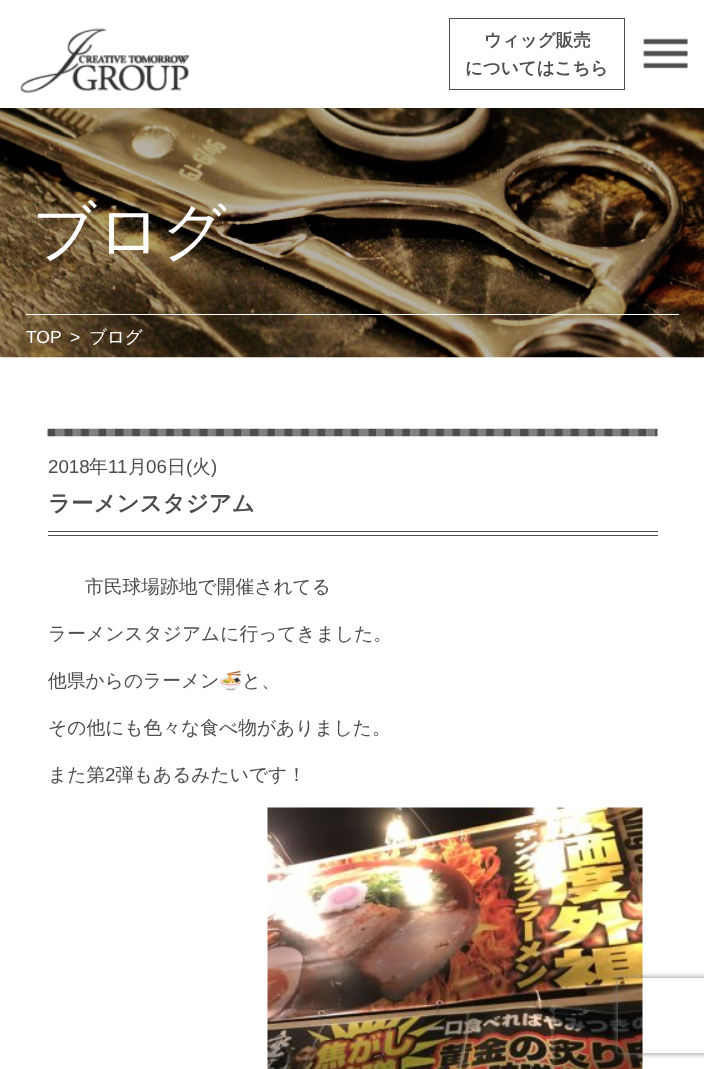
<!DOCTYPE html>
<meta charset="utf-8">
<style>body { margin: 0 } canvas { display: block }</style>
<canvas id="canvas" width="704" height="1069"></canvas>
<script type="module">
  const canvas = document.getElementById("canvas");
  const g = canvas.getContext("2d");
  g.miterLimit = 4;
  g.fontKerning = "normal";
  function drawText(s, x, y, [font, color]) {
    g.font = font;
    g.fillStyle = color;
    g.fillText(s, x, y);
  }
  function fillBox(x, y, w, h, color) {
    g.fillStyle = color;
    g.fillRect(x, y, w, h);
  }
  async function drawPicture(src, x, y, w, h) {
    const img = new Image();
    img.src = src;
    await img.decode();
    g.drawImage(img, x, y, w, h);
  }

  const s1 = ["bold 17.5px WenQuanYi Zen Hei", "#4D4D4D"];
  const s2 = ["500 63.5px WenQuanYi Zen Hei", "#FFFFFF"];
  const s3 = ["17.5px Liberation Sans", "#FFFFFF"];
  const s4 = ["500 17.5px WenQuanYi Zen Hei", "#FFFFFF"];
  const s5 = ["18.75px Liberation Sans", "#4D4D4D"];
  const s6 = ["500 18.75px WenQuanYi Zen Hei", "#4D4D4D"];
  const s7 = ["bold 22.5px WenQuanYi Zen Hei", "#4D4D4D"];
  const s8 = ["18.75px Noto Color Emoji", "#4D4D4D"];

  fillBox(0, 0, 704, 1069, "#FFFFFF");
  await drawPicture("pic1.png", 20, 28, 170, 65);
  g.strokeStyle = "#4D4D4D";
  g.strokeRect(449.5, 18.5, 175, 71);
  drawText("ウィッグ販売", 484, 46, s1);
  drawText("についてはこちら", 465, 74, s1);
  await drawPicture("pic2.png", 643, 38, 45, 31);
  await drawPicture("pic3.png", 0, 108, 704, 250);
  drawText("ブログ", 32, 253, s2);
  fillBox(26, 314, 653, 1, "#FFFFFF");
  drawText("TOP", 26, 343, s3);
  drawText(">", 70, 343, s3);
  drawText("ブログ", 89, 343, s4);
  await drawPicture("pic4.png", 47, 428, 611, 9);
  drawText("2018", 48, 473, s5);
  drawText("年", 89, 473, s6);
  drawText("11", 108, 473, s5);
  drawText("月", 128, 473, s6);
  drawText("06", 146, 473, s5);
  drawText("日", 167, 473, s6);
  drawText("(", 186, 473, s5);
  drawText("火", 192, 473, s6);
  drawText(")", 211, 473, s5);
  fillBox(48, 531, 610, 1, "#4D4D4D");
  fillBox(48, 535, 610, 1, "#4D4D4D");
  drawText("ラーメンスタジアム", 48, 511, s7);
  drawText("市民球場跡地で開催されてる", 85, 593, s6);
  drawText("ラーメンスタジアムに行ってきました。", 48, 640, s6);
  drawText("他県からのラーメン", 48, 687, s6);
  drawText("🍜", 219, 687, s8);
  drawText("と、", 242, 687, s6);
  drawText("その他にも色々な食べ物がありました。", 48, 734, s6);
  drawText("また第", 48, 781, s6);
  drawText("2", 105, 781, s5);
  drawText("弾もあるみたいです！", 115, 781, s6);
  await drawPicture("pic5.png", 267, 807, 376, 262);
  g.save();
  g.beginPath();
  g.moveTo(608, 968);
  g.lineTo(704, 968);
  g.lineTo(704, 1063);
  g.lineTo(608, 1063);
  g.closePath();
  g.moveTo(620.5, 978);
  g.lineTo(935.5, 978);
  g.bezierCurveTo(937, 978, 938, 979, 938, 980.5);
  g.lineTo(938, 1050.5);
  g.bezierCurveTo(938, 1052, 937, 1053, 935.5, 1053);
  g.lineTo(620.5, 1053);
  g.bezierCurveTo(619, 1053, 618, 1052, 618, 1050.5);
  g.lineTo(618, 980.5);
  g.bezierCurveTo(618, 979, 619, 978, 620.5, 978);
  g.closePath();
  g.clip("evenodd");
  g.fillStyle = "#808080";
  g.filter = "blur(3px)";
  g.beginPath();
  g.roundRect(618, 978, 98, 75, 2.5);
  g.fill();
  g.filter = "none";
  g.restore();
</script>
